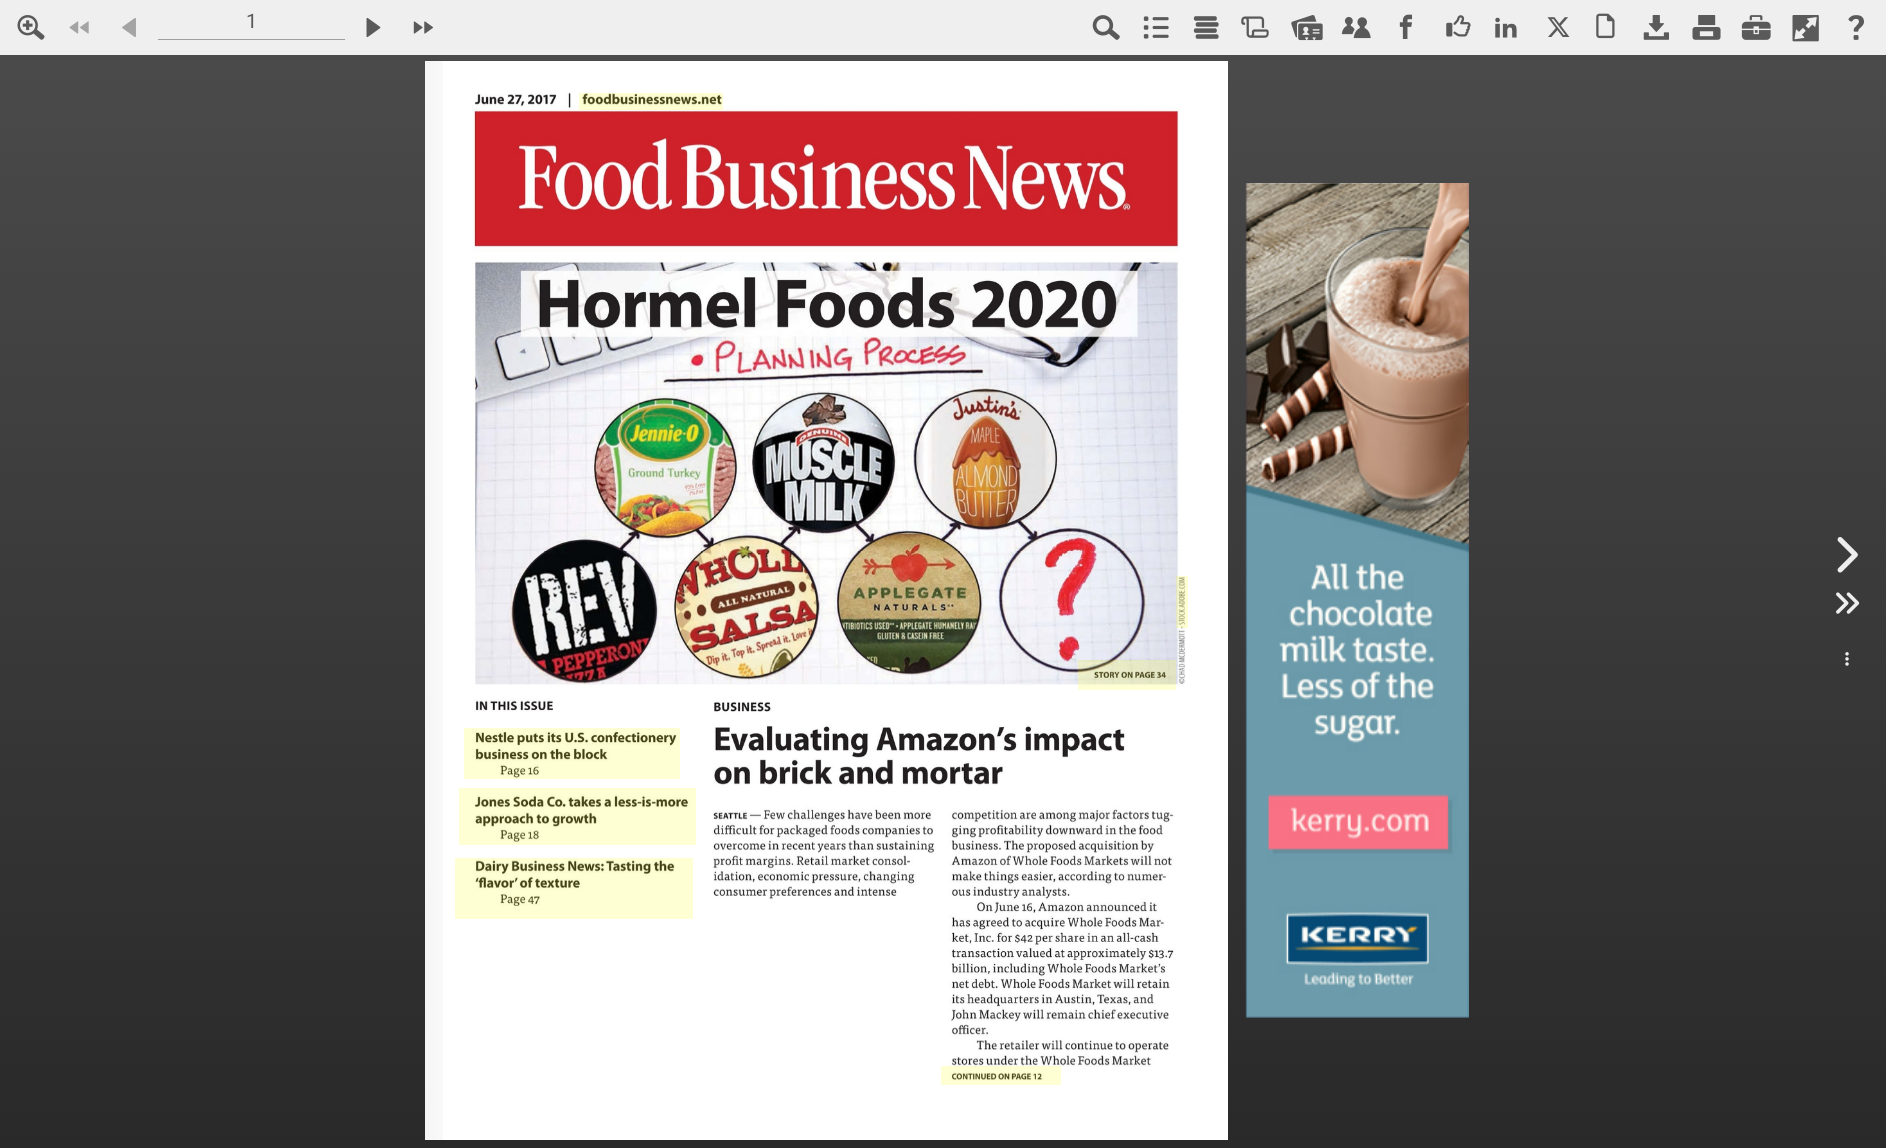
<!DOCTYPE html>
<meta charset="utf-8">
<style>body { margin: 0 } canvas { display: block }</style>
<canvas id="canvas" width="1886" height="1148"></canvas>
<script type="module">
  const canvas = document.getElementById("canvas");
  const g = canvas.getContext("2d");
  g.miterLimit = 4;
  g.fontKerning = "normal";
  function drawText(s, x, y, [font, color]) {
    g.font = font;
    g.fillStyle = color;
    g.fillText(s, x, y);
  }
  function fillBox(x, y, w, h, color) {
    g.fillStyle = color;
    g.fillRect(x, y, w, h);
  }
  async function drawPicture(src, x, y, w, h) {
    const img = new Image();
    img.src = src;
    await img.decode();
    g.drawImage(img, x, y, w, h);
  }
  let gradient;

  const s1 = ["20px Roboto", "#5A5A5A"];

  fillBox(0, 0, 1886, 1148, "#FFFFFF");
  gradient = g.createLinearGradient(943, 0, 943, 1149);
  gradient.addColorStop(0, "#4C4C4C");
  gradient.addColorStop(1, "#292929");
  g.fillStyle = gradient;
  g.fillRect(0, 55, 1886, 1093);
  fillBox(0, 0, 1886, 55, "#EFEFEF");
  await drawPicture("pic1.png", 17, 15, 28, 25);
  await drawPicture("pic2.png", 69, 21, 20, 13);
  await drawPicture("pic3.png", 122, 18, 14, 19);
  fillBox(158, 39, 187, 1, "#9E9E9E");
  drawText("1", 246, 28, s1);
  await drawPicture("pic4.png", 366, 17, 15, 21);
  await drawPicture("pic5.png", 413, 21, 20, 13);
  await drawPicture("pic6.png", 1092, 15, 28, 25);
  await drawPicture("pic7.png", 1143, 16, 26, 23);
  await drawPicture("pic8.png", 1193, 16, 26, 23);
  await drawPicture("pic9.png", 1241, 16, 28, 22);
  await drawPicture("pic10.png", 1291, 15, 32, 26);
  await drawPicture("pic11.png", 1341, 16, 30, 23);
  await drawPicture("pic12.png", 1399, 14, 14, 25);
  await drawPicture("pic13.png", 1446, 15, 25, 22);
  await drawPicture("pic14.png", 1495, 17, 22, 21);
  await drawPicture("pic15.png", 1547, 17, 23, 20);
  await drawPicture("pic16.png", 1596, 13, 19, 26);
  await drawPicture("pic17.png", 1643, 15, 26, 25);
  await drawPicture("pic18.png", 1692, 15, 29, 25);
  await drawPicture("pic19.png", 1741, 15, 30, 25);
  await drawPicture("pic20.png", 1792, 15, 27, 27);
  await drawPicture("pic21.png", 1848, 15, 16, 25);
  fillBox(425, 61, 803, 1079, "#FFFFFF");
  gradient = g.createLinearGradient(1228, 602, 425, 602);
  gradient.addColorStop(0.95, "rgba(0, 0, 0, 0)");
  gradient.addColorStop(1, "rgba(0, 0, 0, 0.04)");
  g.fillStyle = gradient;
  g.fillRect(425, 61, 18, 1079);
  await drawPicture("pic22.png", 472, 91, 714, 1);
  await drawPicture("pic23.png", 472, 92, 714, 989);
  fillBox(579, 93, 144, 17, "rgba(255, 255, 0, 0.17)");
  fillBox(1176, 576, 12, 52, "rgba(255, 255, 0, 0.17)");
  fillBox(1078, 660, 98, 30, "rgba(255, 255, 0, 0.17)");
  fillBox(464, 728, 216, 51, "rgba(255, 255, 0, 0.17)");
  fillBox(459, 788, 237, 57, "rgba(255, 255, 0, 0.17)");
  fillBox(455, 858, 238, 61, "rgba(255, 255, 0, 0.17)");
  fillBox(941, 1066, 120, 19, "rgba(255, 255, 0, 0.17)");
  await drawPicture("pic24.png", 1245, 183, 224, 835);
  await drawPicture("pic25.png", 1837, 537, 21, 36);
  await drawPicture("pic26.png", 1836, 592, 24, 22);
  await drawPicture("pic27.png", 1845, 652, 4, 14);
</script>
